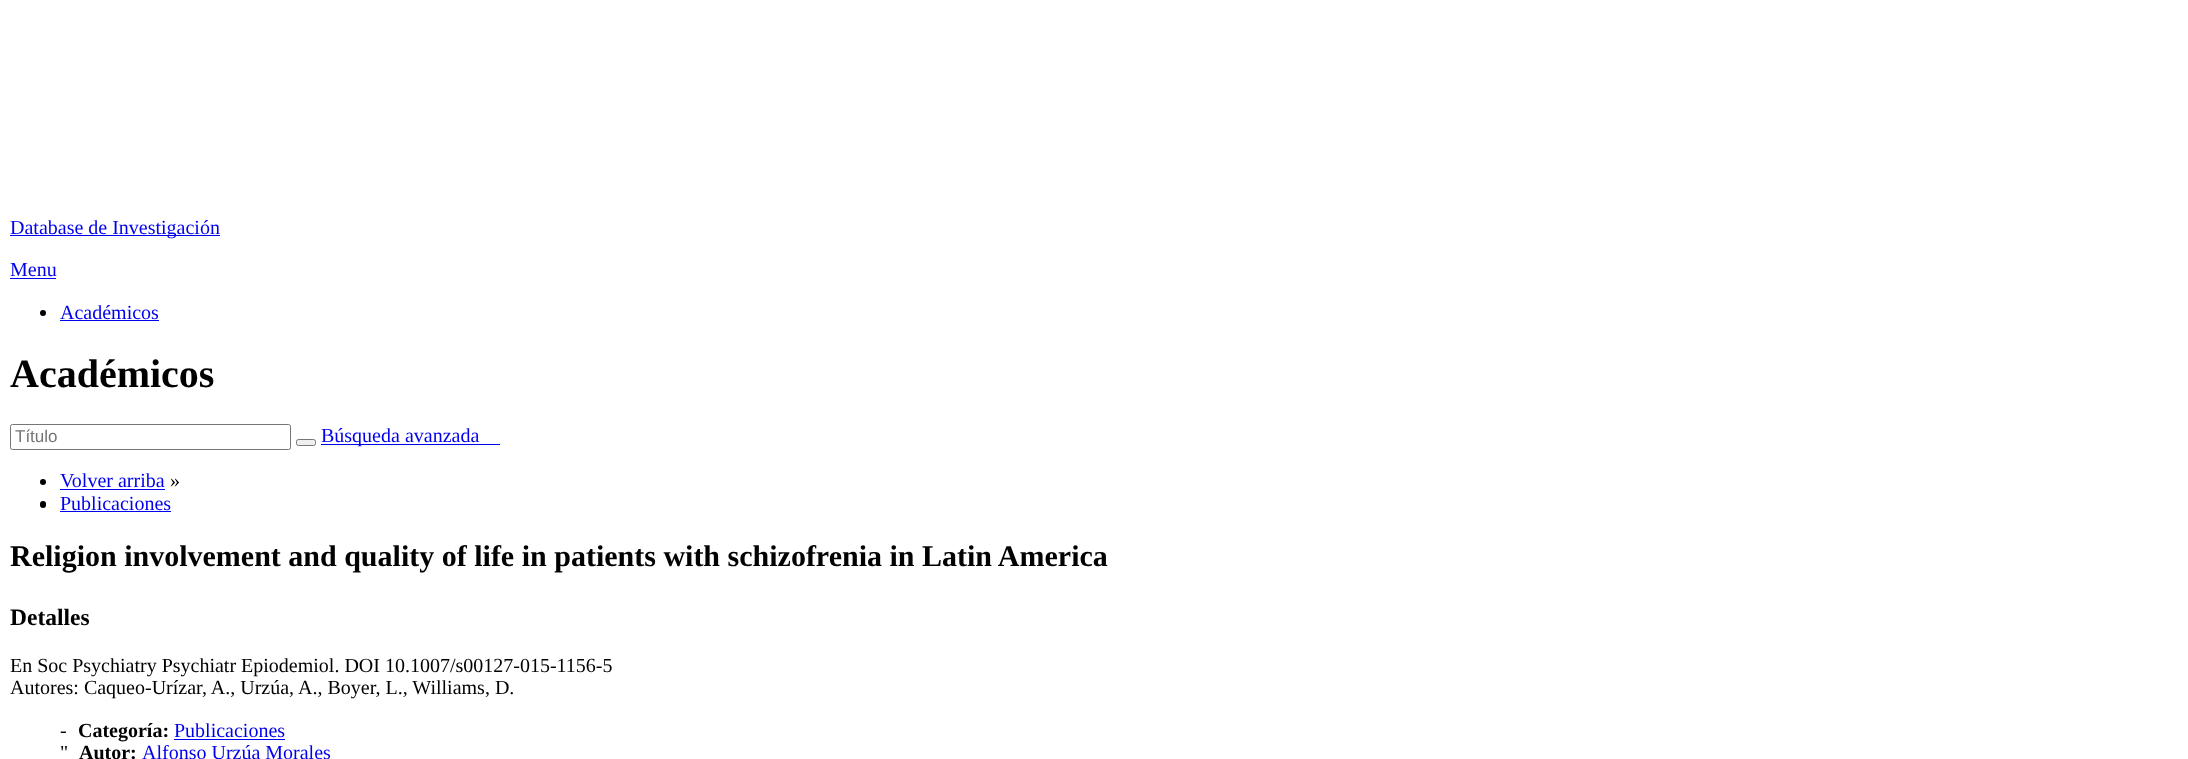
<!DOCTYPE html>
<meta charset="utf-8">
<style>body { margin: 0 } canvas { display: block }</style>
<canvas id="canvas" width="2188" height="759"></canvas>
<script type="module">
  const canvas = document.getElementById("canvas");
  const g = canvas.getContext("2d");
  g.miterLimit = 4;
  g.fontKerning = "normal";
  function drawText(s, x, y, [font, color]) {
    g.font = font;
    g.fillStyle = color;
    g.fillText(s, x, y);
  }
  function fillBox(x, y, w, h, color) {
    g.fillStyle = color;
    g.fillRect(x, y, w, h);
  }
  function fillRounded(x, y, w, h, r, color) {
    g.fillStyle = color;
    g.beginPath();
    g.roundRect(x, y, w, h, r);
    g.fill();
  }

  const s1 = ["20px Liberation Serif", "#0000EE"];
  const s2 = ["bold 40px Liberation Serif", "#000000"];
  const s3 = ["17px Liberation Sans", "#757575"];
  const s4 = ["20px Liberation Serif", "#000000"];
  const s5 = ["bold 30px Liberation Serif", "#000000"];
  const s6 = ["bold 23.5px Liberation Serif", "#000000"];
  const s7 = ["bold 20px Liberation Serif", "#000000"];

  fillBox(0, 0, 2188, 759, "#FFFFFF");
  fillBox(10, 235, 210, 1, "#0000EE");
  drawText("Database de Investigación", 10, 234, s1);
  drawText("Menu", 10, 276, s1);
  fillBox(10, 278, 46, 1, "#0000EE");
  g.fillStyle = "#000000";
  g.beginPath();
  g.arc(43, 313, 3, 0, Math.PI * 2);
  g.fill();
  drawText("Académicos", 60, 319, s1);
  fillBox(60, 320, 99, 1, "#0000EE");
  drawText("Académicos", 10, 387, s2);
  g.beginPath();
  g.roundRect(10.5, 424.5, 280, 25, 2);
  g.strokeStyle = "#767676";
  g.stroke();
  drawText("Título", 15, 442, s3);
  g.fillStyle = "#EFEFEF";
  g.beginPath();
  g.roundRect(296.5, 439.5, 19, 6, 2);
  g.fill();
  g.stroke();
  fillBox(321, 444, 179, 1, "#0000EE");
  drawText("Búsqueda avanzada", 321, 442, s1);
  g.fillStyle = "#000000";
  g.beginPath();
  g.arc(43, 482, 3, 0, Math.PI * 2);
  g.fill();
  drawText("Volver arriba", 60, 487, s1);
  fillBox(60, 489, 105, 1, "#0000EE");
  drawText("»", 170, 487, s4);
  fillRounded(40, 501, 6, 7, 3, "#000000");
  drawText("Publicaciones", 60, 510, s1);
  fillBox(60, 511, 111, 1, "#0000EE");
  drawText("Religion involvement and quality of life in patients with schizofrenia in Latin America", 10, 566, s5);
  drawText("Detalles", 10, 625, s6);
  drawText("En Soc Psychiatry Psychiatr Epiodemiol. DOI 10.1007/s00127-015-1156-5", 10, 672, s4);
  drawText("Autores: Caqueo-Urízar, A., Urzúa, A., Boyer, L., Williams, D.", 10, 694, s4);
  drawText("-", 60, 737, s4);
  drawText("Categoría:", 78, 737, s7);
  drawText("Publicaciones", 174, 737, s1);
  fillBox(174, 739, 111, 1, "#0000EE");
  drawText("\"", 60, 759, s4);
  drawText("Autor:", 79, 759, s7);
  drawText("Alfonso Urzúa Morales", 142, 759, s1);
</script>
